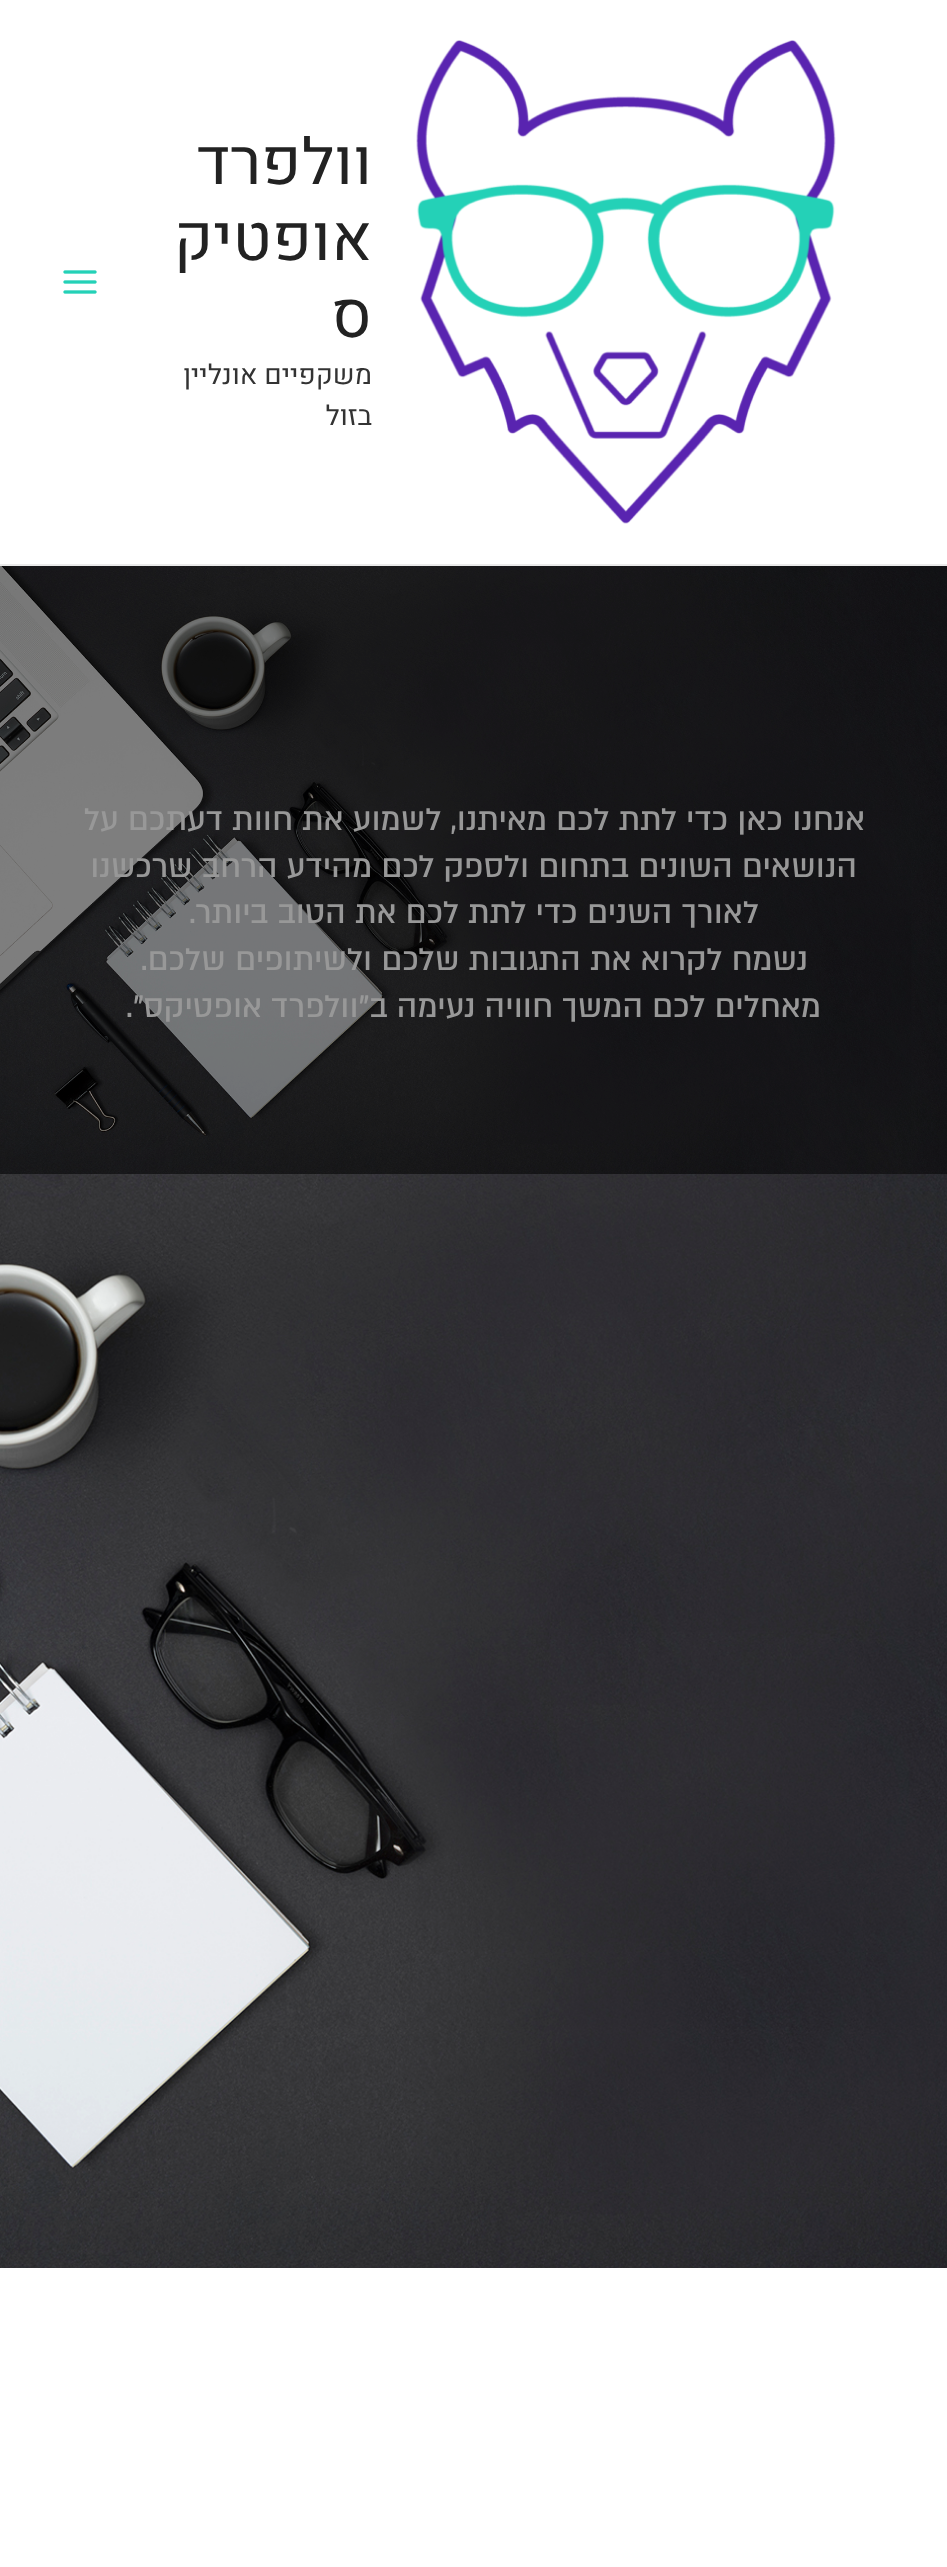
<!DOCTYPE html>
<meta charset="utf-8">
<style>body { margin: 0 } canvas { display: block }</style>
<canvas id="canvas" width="947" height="2567"></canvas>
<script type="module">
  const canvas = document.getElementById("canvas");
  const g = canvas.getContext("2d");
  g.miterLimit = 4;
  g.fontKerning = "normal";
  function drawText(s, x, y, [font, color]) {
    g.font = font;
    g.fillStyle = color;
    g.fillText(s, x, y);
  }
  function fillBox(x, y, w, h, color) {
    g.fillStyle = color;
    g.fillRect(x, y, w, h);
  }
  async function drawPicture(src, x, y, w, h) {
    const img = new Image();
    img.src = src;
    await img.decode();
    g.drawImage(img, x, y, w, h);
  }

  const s1 = ["64px Heebo", "#222222"];
  const s2 = ["27.5px Heebo", "#333333"];
  const s3 = ["500 36px 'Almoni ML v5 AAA'", "#989898"];

  fillBox(0, 0, 947, 2567, "#FFFFFF");
  fillBox(0, 564, 947, 2, "#EAEAEA");
  await drawPicture("pic1.png", 416, 40, 420, 484);
  g.direction = "rtl";
  drawText("וולפרד", 372, 184, s1);
  drawText("אופטיק", 372, 260, s1);
  drawText("ס", 372, 337, s1);
  drawText("משקפיים אונליין", 372, 384, s2);
  drawText("בזול", 372, 425, s2);
  await drawPicture("pic2.png", 63, 270, 34, 24);
  await drawPicture("pic3.png", 0, 566, 947, 608);
  drawText("אנחנו כאן כדי לתת לכם מאיתנו, לשמוע את חוות דעתכם על", 865, 830, s3);
  drawText("הנושאים השונים בתחום ולספק לכם מהידע הרחב שרכשנו", 857, 877, s3);
  drawText("לאורך השנים כדי לתת לכם את הטוב ביותר.", 759, 923, s3);
  drawText("נשמח לקרוא את התגובות שלכם ולשיתופים שלכם.", 808, 970, s3);
  drawText("מאחלים לכם המשך חוויה נעימה ב\"וולפרד אופטיקס\".", 821, 1017, s3);
  await drawPicture("pic4.png", 0, 1174, 947, 1094);
</script>
